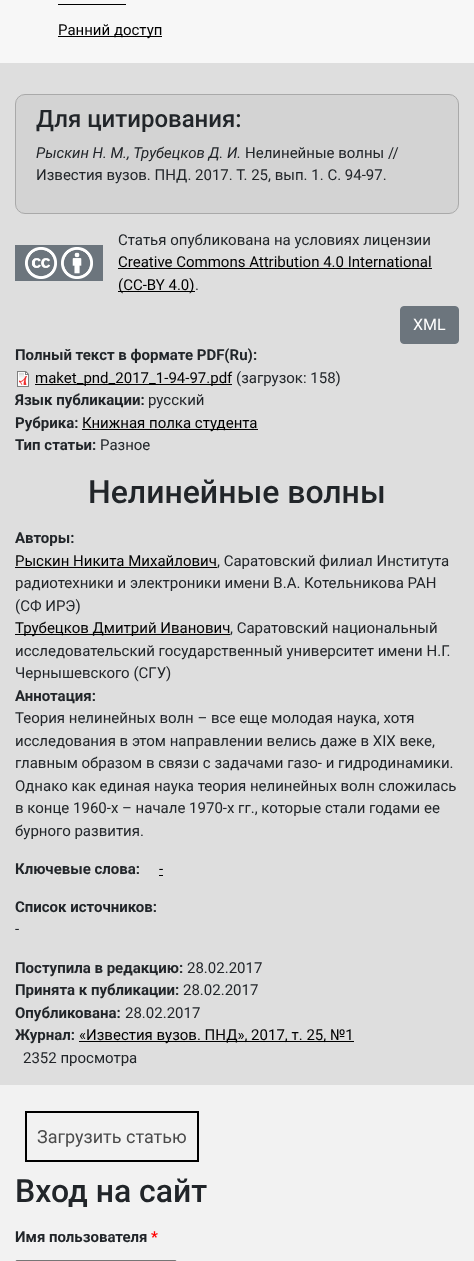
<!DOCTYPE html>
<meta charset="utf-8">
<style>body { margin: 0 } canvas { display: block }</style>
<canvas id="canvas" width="474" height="1261"></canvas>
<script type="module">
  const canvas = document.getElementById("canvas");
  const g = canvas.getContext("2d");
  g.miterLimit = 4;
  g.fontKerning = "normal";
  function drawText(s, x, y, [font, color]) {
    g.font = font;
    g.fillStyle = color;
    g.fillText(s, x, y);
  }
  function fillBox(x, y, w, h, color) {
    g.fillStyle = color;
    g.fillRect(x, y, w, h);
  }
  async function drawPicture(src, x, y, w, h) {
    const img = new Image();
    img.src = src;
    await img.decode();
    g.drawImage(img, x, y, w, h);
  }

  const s1 = ["15px Roboto", "#000000"];
  const s2 = ["500 24px Roboto", "#212529"];
  const s3 = ["italic 15px Roboto", "#212529"];
  const s4 = ["15px Roboto", "#212529"];
  const s5 = ["16px Roboto", "#FFFFFF"];
  const s6 = ["bold 15px Roboto", "#212529"];
  const s7 = ["500 32px Roboto", "#212529"];
  const s8 = ["18px Roboto", "#4A4A4A"];
  const s9 = ["bold 15px Roboto", "#FF0000"];

  fillBox(0, 0, 474, 1261, "#F7F7F7");
  fillBox(58, 4, 68, 1, "#000000");
  fillBox(58, 36, 104, 1, "#000000");
  drawText("Ранний доступ", 58, 35, s1);
  fillBox(0, 63, 474, 1022, "#DEDEDE");
  g.fillStyle = "#D3D3D3";
  g.beginPath();
  g.roundRect(15.5, 94.5, 443, 119, 9.5);
  g.fill();
  g.strokeStyle = "#A9A9A9";
  g.stroke();
  drawText("Для цитирования:", 36, 127, s2);
  drawText("Рыскин Н. М., Трубецков Д. И.", 36, 158, s3);
  drawText("Нелинейные волны //", 245, 158, s4);
  drawText("Известия вузов. ПНД. 2017. Т. 25, вып. 1. С. 94-97.", 36, 180, s4);
  fillBox(15, 245, 88, 36, "#6C757D");
  await drawPicture("pic1.png", 25, 247, 32, 32);
  await drawPicture("pic2.png", 61, 247, 32, 32);
  drawText("Статья опубликована на условиях лицензии", 118, 245, s4);
  drawText("Creative Commons Attribution 4.0 International", 118, 267, s1);
  fillBox(118, 268, 314, 1, "#000000");
  fillBox(118, 291, 77, 1, "#000000");
  drawText("(CC-BY 4.0)", 118, 290, s1);
  drawText(".", 195, 290, s4);
  g.fillStyle = "#6C757D";
  g.beginPath();
  g.roundRect(400.5, 306.5, 58, 37, 3.5);
  g.fill();
  g.strokeStyle = "#6C757D";
  g.stroke();
  drawText("XML", 413, 330, s5);
  drawText("Полный текст в формате PDF(Ru):", 15, 360, s6);
  await drawPicture("pic3.png", 17, 371, 12, 16);
  fillBox(35, 384, 197, 1, "#000000");
  drawText("maket_pnd_2017_1-94-97.pdf", 35, 383, s1);
  drawText("(загрузок: 158)", 236, 383, s4);
  drawText("Язык публикации:", 15, 405, s6);
  drawText("русский", 148, 405, s4);
  drawText("Рубрика:", 15, 428, s6);
  fillBox(82, 429, 176, 1, "#000000");
  drawText("Книжная полка студента", 82, 428, s1);
  drawText("Тип статьи:", 15, 450, s6);
  drawText("Разное", 100, 450, s4);
  drawText("Нелинейные волны", 88, 503, s7);
  drawText("Авторы:", 15, 543, s6);
  drawText("Рыскин Никита Михайлович", 15, 566, s1);
  fillBox(15, 567, 202, 1, "#000000");
  drawText(", Саратовский филиал Института", 217, 566, s4);
  drawText("радиотехники и электроники имени В.А. Котельникова РАН", 15, 588, s4);
  drawText("(СФ ИРЭ)", 15, 611, s4);
  fillBox(15, 634, 215, 1, "#000000");
  drawText("Трубецков Дмитрий Иванович", 15, 633, s1);
  drawText(", Саратовский национальный", 230, 633, s4);
  drawText("исследовательский государственный университет имени Н.Г.", 15, 656, s4);
  drawText("Чернышевского (СГУ)", 15, 678, s4);
  drawText("Аннотация:", 15, 701, s6);
  drawText("Теория нелинейных волн – все еще молодая наука, хотя", 15, 723, s4);
  drawText("исследования в этом направлении велись даже в XIX веке,", 15, 746, s4);
  drawText("главным образом в связи с задачами газо- и гидродинамики.", 15, 768, s4);
  drawText("Однако как единая наука теория нелинейных волн сложилась", 15, 791, s4);
  drawText("в конце 1960-х – начале 1970-х гг., которые стали годами ее", 15, 813, s4);
  drawText("бурного развития.", 15, 836, s4);
  drawText("Ключевые слова:", 15, 874, s6);
  drawText("-", 159, 874, s1);
  fillBox(159, 875, 4, 1, "#000000");
  drawText("Список источников:", 15, 912, s6);
  drawText("-", 15, 934, s4);
  drawText("Поступила в редакцию:", 15, 973, s6);
  drawText("28.02.2017", 187, 973, s4);
  drawText("Принята к публикации:", 15, 995, s6);
  drawText("28.02.2017", 183, 995, s4);
  drawText("Опубликована:", 15, 1018, s6);
  drawText("28.02.2017", 125, 1018, s4);
  drawText("Журнал:", 15, 1040, s6);
  fillBox(79, 1041, 275, 1, "#000000");
  drawText("«Известия вузов. ПНД», 2017, т. 25, №1", 79, 1040, s1);
  drawText("2352 просмотра", 23, 1063, s4);
  fillBox(0, 1085, 474, 176, "#F2F2F2");
  g.strokeStyle = "#000000";
  g.lineWidth = 2;
  g.strokeRect(26, 1112, 172, 49);
  drawText("Загрузить статью", 37, 1143, s8);
  drawText("Вход на сайт", 15, 1202, s7);
  drawText("Имя пользователя", 15, 1242, s6);
  drawText("*", 151, 1242, s9);
  g.beginPath();
  g.roundRect(15.5, 1260.5, 161, 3, 1.5);
  g.strokeStyle = "#767676";
  g.lineWidth = 1;
  g.stroke();
</script>
